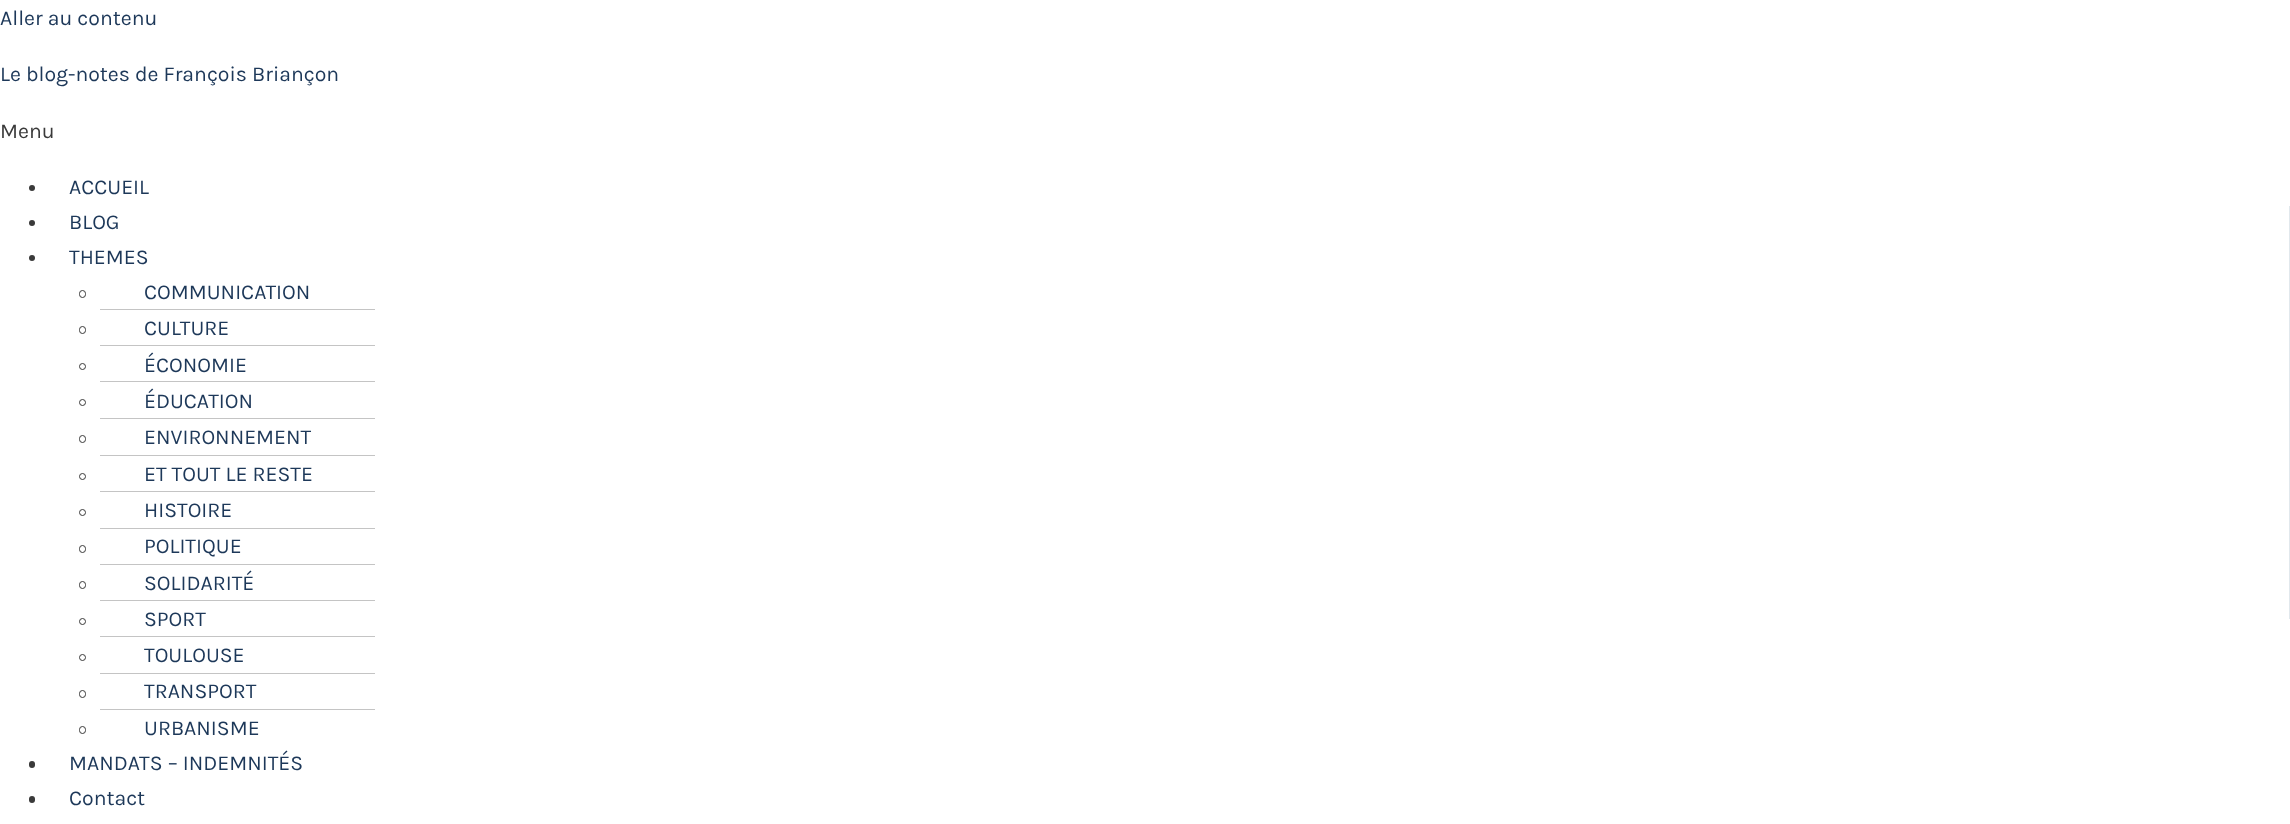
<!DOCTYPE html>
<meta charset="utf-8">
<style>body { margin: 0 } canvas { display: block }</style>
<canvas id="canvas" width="2290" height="824"></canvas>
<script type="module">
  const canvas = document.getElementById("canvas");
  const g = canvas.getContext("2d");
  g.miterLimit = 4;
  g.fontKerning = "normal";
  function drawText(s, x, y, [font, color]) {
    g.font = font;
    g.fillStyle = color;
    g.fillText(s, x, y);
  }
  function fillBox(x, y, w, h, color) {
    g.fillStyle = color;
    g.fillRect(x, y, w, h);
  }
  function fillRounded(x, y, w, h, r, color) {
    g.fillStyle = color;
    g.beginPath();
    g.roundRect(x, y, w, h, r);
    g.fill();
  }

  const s1 = ["21.25px Karla", "#1D3859"];
  const s2 = ["21.25px Karla", "#3A3A3A"];

  fillBox(0, 0, 2290, 824, "#FFFFFF");
  drawText("Aller au contenu", 0, 25, s1);
  drawText("Le blog-notes de François Briançon", 0, 81, s1);
  drawText("Menu", 0, 138, s2);
  g.beginPath();
  g.arc(32, 188, 3, 0, Math.PI * 2);
  g.fill();
  drawText("ACCUEIL", 69, 194, s1);
  g.fillStyle = "#3A3A3A";
  g.beginPath();
  g.arc(32, 223, 3, 0, Math.PI * 2);
  g.fill();
  drawText("BLOG", 69, 229, s1);
  g.fillStyle = "#3A3A3A";
  g.beginPath();
  g.arc(32, 258, 3, 0, Math.PI * 2);
  g.fill();
  drawText("THEMES", 69, 264, s1);
  fillBox(100, 309, 275, 1, "#C4C4C4");
  g.beginPath();
  g.roundRect(79.5, 290.5, 6, 7, 3);
  g.strokeStyle = "#3A3A3A";
  g.stroke();
  drawText("COMMUNICATION", 144, 299, s1);
  fillBox(100, 345, 275, 1, "#C4C4C4");
  g.beginPath();
  g.roundRect(79.5, 326.5, 6, 7, 3);
  g.stroke();
  drawText("CULTURE", 144, 335, s1);
  fillBox(100, 381, 275, 1, "#C4C4C4");
  g.beginPath();
  g.arc(82.5, 366.5, 3, 0, Math.PI * 2);
  g.stroke();
  drawText("ÉCONOMIE", 144, 372, s1);
  fillBox(100, 418, 275, 1, "#C4C4C4");
  g.beginPath();
  g.arc(82.5, 402.5, 3, 0, Math.PI * 2);
  g.stroke();
  drawText("ÉDUCATION", 144, 408, s1);
  fillBox(100, 455, 275, 1, "#C4C4C4");
  g.beginPath();
  g.roundRect(79.5, 435.5, 6, 7, 3);
  g.stroke();
  drawText("ENVIRONNEMENT", 144, 444, s1);
  fillBox(100, 491, 275, 1, "#C4C4C4");
  g.beginPath();
  g.arc(82.5, 476.5, 3, 0, Math.PI * 2);
  g.stroke();
  drawText("ET TOUT LE RESTE", 144, 481, s1);
  fillBox(100, 528, 275, 1, "#C4C4C4");
  g.beginPath();
  g.arc(82.5, 512.5, 3, 0, Math.PI * 2);
  g.stroke();
  drawText("HISTOIRE", 144, 517, s1);
  fillBox(100, 564, 275, 1, "#C4C4C4");
  g.beginPath();
  g.roundRect(79.5, 545.5, 6, 7, 3);
  g.stroke();
  drawText("POLITIQUE", 144, 553, s1);
  fillBox(100, 600, 275, 1, "#C4C4C4");
  g.beginPath();
  g.roundRect(79.5, 581.5, 6, 7, 3);
  g.stroke();
  drawText("SOLIDARITÉ", 144, 590, s1);
  fillBox(100, 636, 275, 1, "#C4C4C4");
  g.beginPath();
  g.arc(82.5, 621.5, 3, 0, Math.PI * 2);
  g.stroke();
  drawText("SPORT", 144, 626, s1);
  fillBox(100, 673, 275, 1, "#C4C4C4");
  g.beginPath();
  g.arc(82.5, 657.5, 3, 0, Math.PI * 2);
  g.stroke();
  drawText("TOULOUSE", 144, 662, s1);
  fillBox(100, 709, 275, 1, "#C4C4C4");
  g.beginPath();
  g.roundRect(79.5, 690.5, 6, 7, 3);
  g.stroke();
  drawText("TRANSPORT", 144, 698, s1);
  g.beginPath();
  g.roundRect(79.5, 726.5, 6, 7, 3);
  g.stroke();
  drawText("URBANISME", 144, 735, s1);
  fillRounded(29, 761, 6, 7, 3, "#3A3A3A");
  drawText("MANDATS – INDEMNITÉS", 69, 770, s1);
  fillRounded(29, 796, 6, 7, 3, "#3A3A3A");
  drawText("Contact", 69, 805, s1);
  fillBox(2289, 206, 1, 413, "#E1E8ED");
</script>
